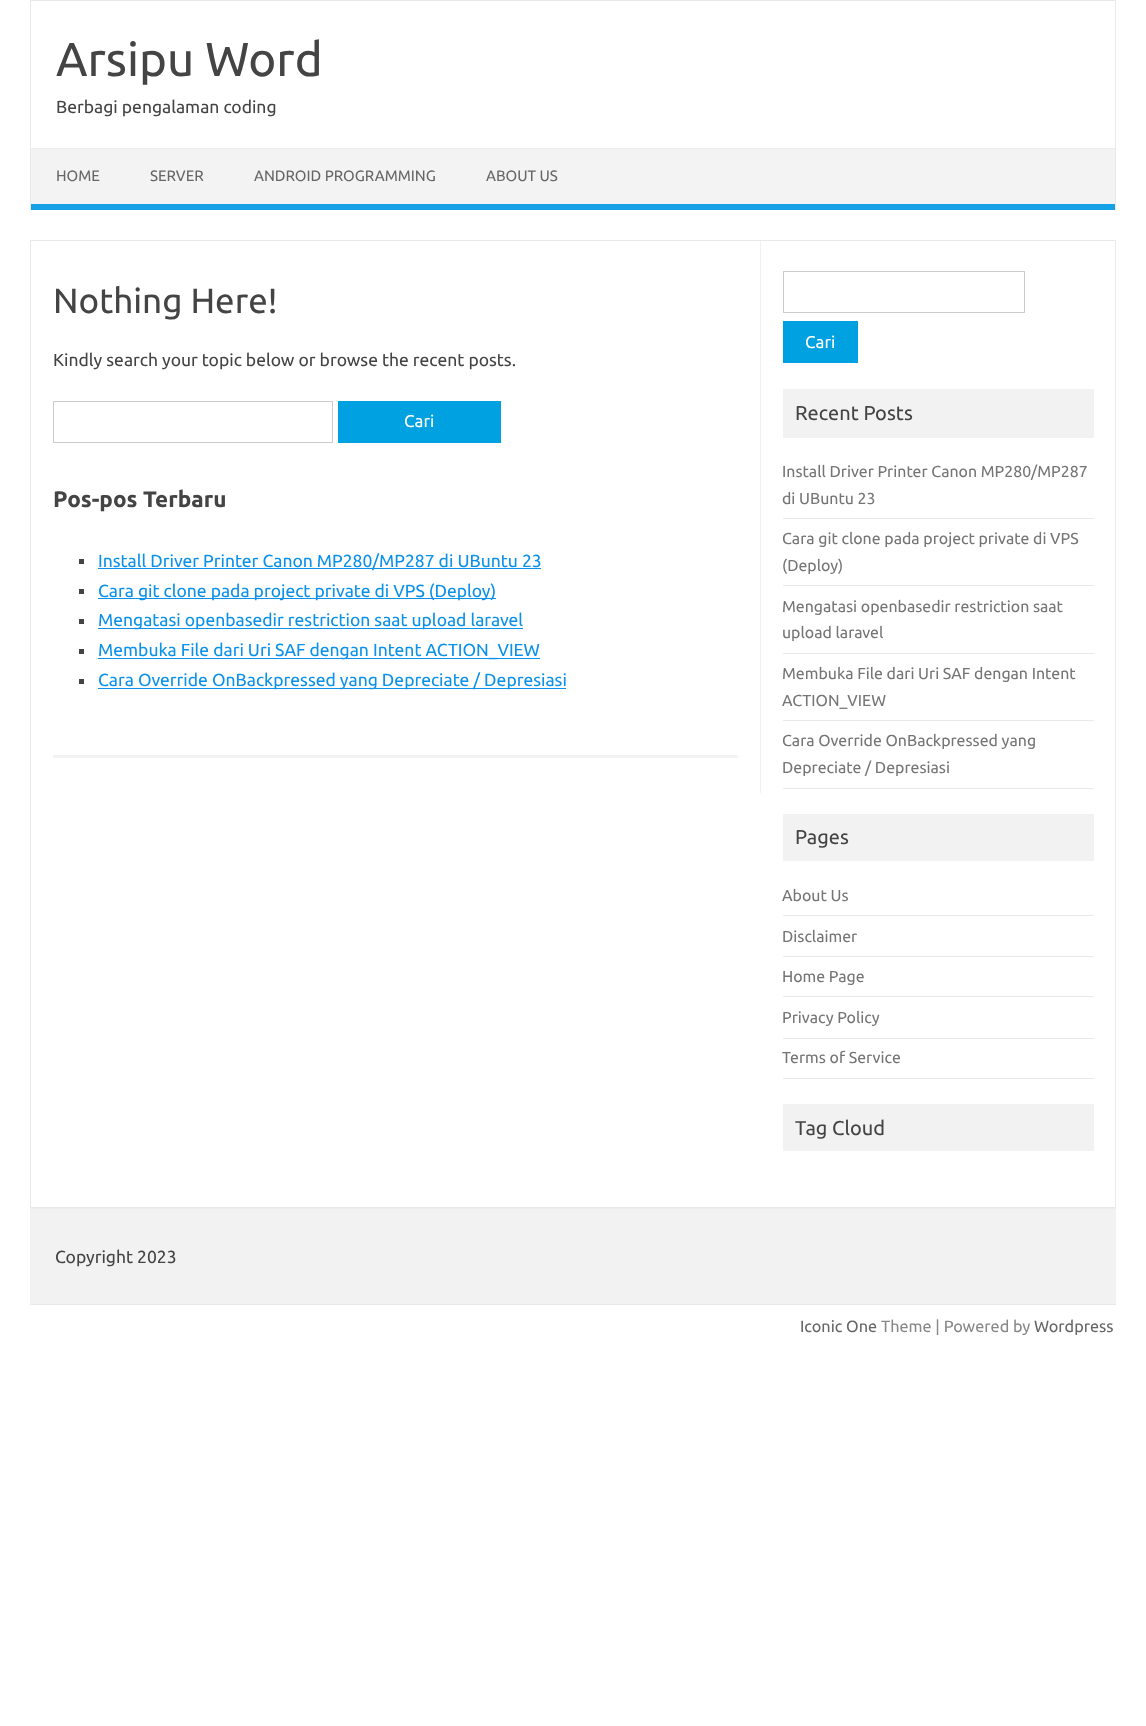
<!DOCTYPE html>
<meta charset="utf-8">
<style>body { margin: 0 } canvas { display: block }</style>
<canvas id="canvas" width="1146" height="1726"></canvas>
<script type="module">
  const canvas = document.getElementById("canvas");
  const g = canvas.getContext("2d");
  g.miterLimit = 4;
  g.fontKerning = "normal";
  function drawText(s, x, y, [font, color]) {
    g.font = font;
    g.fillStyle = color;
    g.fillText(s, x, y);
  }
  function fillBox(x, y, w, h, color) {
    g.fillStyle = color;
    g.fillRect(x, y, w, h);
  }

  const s1 = ["47.5px Ubuntu", "#444444"];
  const s2 = ["17.5px Ubuntu", "#444444"];
  const s3 = ["15px Ubuntu", "#666666"];
  const s4 = ["35px Ubuntu", "#444444"];
  const s5 = ["17px Ubuntu", "#FFFFFF"];
  const s6 = ["bold 22.5px Ubuntu", "#444444"];
  const s7 = ["17.5px Ubuntu", "#0B91EA"];
  const s8 = ["20px Ubuntu", "#444444"];
  const s9 = ["15.9px Ubuntu", "#757575"];
  const s10 = ["16.25px Ubuntu", "#666666"];
  const s11 = ["16.25px Ubuntu", "#888888"];

  fillBox(0, 0, 1146, 1726, "#FFFFFF");
  fillBox(30, 0, 1086, 1, "#E9E9E9");
  fillBox(1115, 0, 1, 210, "#E9E9E9");
  fillBox(30, 0, 1, 210, "#E9E9E9");
  drawText("Arsipu Word", 56, 76, s1);
  drawText("Berbagi pengalaman coding", 56, 113, s2);
  fillBox(31, 149, 1084, 55, "#F3F3F3");
  fillBox(31, 148, 1084, 1, "#EDEDED");
  fillBox(31, 204, 1084, 6, "#16A1E7");
  drawText("HOME", 56, 181, s3);
  drawText("SERVER", 150, 181, s3);
  drawText("ANDROID PROGRAMMING", 254, 181, s3);
  drawText("ABOUT US", 486, 181, s3);
  g.strokeStyle = "#E9E9E9";
  g.strokeRect(30.5, 240.5, 1085, 967);
  fillBox(760, 241, 1, 552, "#F1F1F1");
  fillBox(53, 755, 685, 3, "#F3F3F3");
  drawText("Nothing Here!", 53, 313, s4);
  drawText("Kindly search your topic below or browse the recent posts.", 53, 366, s2);
  g.strokeStyle = "#CCCCCC";
  g.strokeRect(53.5, 401.5, 279, 41);
  fillBox(338, 401, 163, 42, "#00A1E0");
  drawText("Cari", 404, 427, s5);
  drawText("Pos-pos Terbaru", 53, 507, s6);
  fillBox(79, 559, 5, 5, "#444444");
  fillBox(98, 568, 443, 1, "#0B91EA");
  drawText("Install Driver Printer Canon MP280/MP287 di UBuntu 23", 98, 567, s7);
  fillBox(79, 589, 5, 5, "#444444");
  fillBox(98, 598, 398, 1, "#0B91EA");
  drawText("Cara git clone pada project private di VPS (Deploy)", 98, 597, s7);
  fillBox(79, 619, 5, 5, "#444444");
  fillBox(98, 628, 425, 1, "#0B91EA");
  drawText("Mengatasi openbasedir restriction saat upload laravel", 98, 626, s7);
  fillBox(79, 649, 5, 5, "#444444");
  fillBox(98, 658, 442, 1, "#0B91EA");
  drawText("Membuka File dari Uri SAF dengan Intent ACTION_VIEW", 98, 656, s7);
  fillBox(79, 679, 5, 5, "#444444");
  fillBox(98, 688, 468, 1, "#0B91EA");
  drawText("Cara Override OnBackpressed yang Depreciate / Depresiasi", 98, 686, s7);
  g.strokeRect(783.5, 271.5, 241, 41);
  fillBox(783, 321, 75, 42, "#00A1E0");
  drawText("Cari", 805, 348, s5);
  fillBox(783, 389, 311, 49, "#F2F2F2");
  drawText("Recent Posts", 795, 420, s8);
  fillBox(783, 518, 311, 1, "#E9E9E9");
  drawText("Install Driver Printer Canon MP280/MP287", 782, 477, s9);
  drawText("di UBuntu 23", 782, 504, s9);
  fillBox(783, 585, 311, 1, "#E9E9E9");
  drawText("Cara git clone pada project private di VPS", 782, 544, s9);
  drawText("(Deploy)", 782, 571, s9);
  fillBox(783, 653, 311, 1, "#E9E9E9");
  drawText("Mengatasi openbasedir restriction saat", 782, 612, s9);
  drawText("upload laravel", 782, 638, s9);
  fillBox(783, 720, 311, 1, "#E9E9E9");
  drawText("Membuka File dari Uri SAF dengan Intent", 782, 679, s9);
  drawText("ACTION_VIEW", 782, 706, s9);
  fillBox(783, 788, 311, 1, "#E9E9E9");
  drawText("Cara Override OnBackpressed yang", 782, 746, s9);
  drawText("Depreciate / Depresiasi", 782, 773, s9);
  fillBox(783, 814, 311, 47, "#F2F2F2");
  drawText("Pages", 795, 844, s8);
  fillBox(783, 915, 311, 1, "#E9E9E9");
  drawText("About Us", 782, 901, s9);
  fillBox(783, 956, 311, 1, "#E9E9E9");
  drawText("Disclaimer", 782, 942, s9);
  fillBox(783, 996, 311, 1, "#E9E9E9");
  drawText("Home Page", 782, 982, s9);
  fillBox(783, 1038, 311, 1, "#E9E9E9");
  drawText("Privacy Policy", 782, 1023, s9);
  fillBox(783, 1078, 311, 1, "#E9E9E9");
  drawText("Terms of Service", 782, 1063, s9);
  fillBox(783, 1104, 311, 47, "#F2F2F2");
  drawText("Tag Cloud", 795, 1135, s8);
  fillBox(30, 1209, 1086, 95, "#F2F2F2");
  fillBox(30, 1208, 1086, 1, "#EDEDED");
  fillBox(30, 1304, 1086, 1, "#E9E9E9");
  drawText("Copyright 2023", 55, 1263, s2);
  drawText("Iconic One", 800, 1332, s10);
  drawText("Theme | Powered by", 881, 1332, s11);
  drawText("Wordpress", 1034, 1332, s10);
</script>
